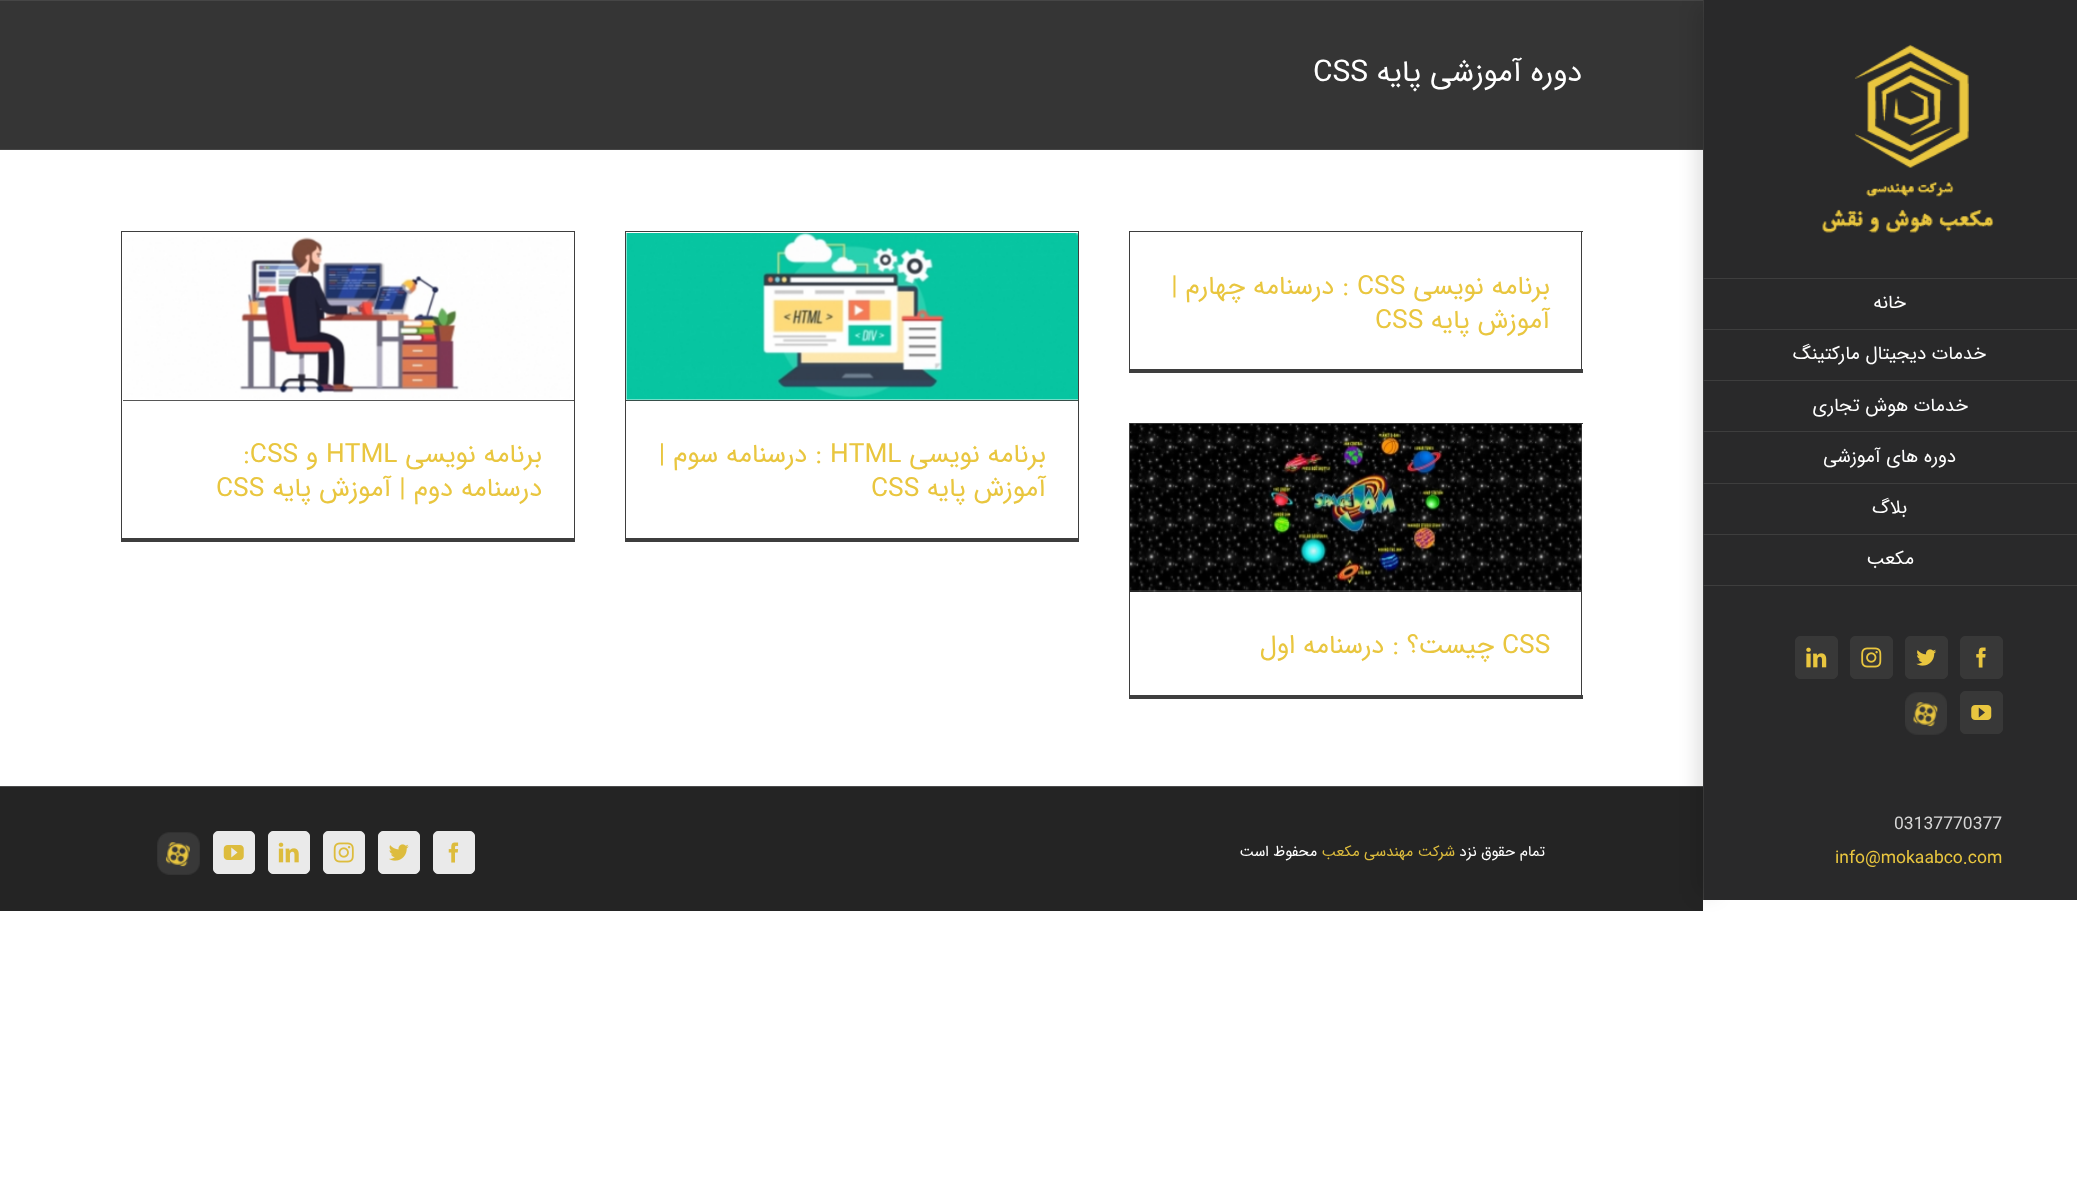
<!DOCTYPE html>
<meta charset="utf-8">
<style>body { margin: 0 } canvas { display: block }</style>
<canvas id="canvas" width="2077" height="1181"></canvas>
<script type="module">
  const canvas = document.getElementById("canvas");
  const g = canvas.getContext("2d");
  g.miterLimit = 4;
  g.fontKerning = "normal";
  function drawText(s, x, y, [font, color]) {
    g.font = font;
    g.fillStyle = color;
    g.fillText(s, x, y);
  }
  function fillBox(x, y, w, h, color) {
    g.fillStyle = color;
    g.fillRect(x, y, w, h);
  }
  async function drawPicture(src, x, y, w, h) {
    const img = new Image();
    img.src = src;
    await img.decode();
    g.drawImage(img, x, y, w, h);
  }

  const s1 = ["30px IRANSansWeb", "#FFFFFF"];
  const s2 = ["18.75px IRANSansWeb", "#FFFFFF"];
  const s3 = ["17.5px IRANSansWeb", "#D6D6D6"];
  const s4 = ["17.5px IRANSansWeb", "#E9C63F"];
  const s5 = ["26.25px IRANSansWeb", "#E9C63F"];
  const s6 = ["15px IRANSansWeb", "#FFFFFF"];
  const s7 = ["15px IRANSansWeb", "#DDBC3D"];

  fillBox(0, 0, 2077, 1181, "#FFFFFF");
  fillBox(0, 1, 1703, 148, "#353535");
  fillBox(0, 0, 1703, 1, "#464646");
  fillBox(0, 149, 1703, 1, "#464646");
  g.direction = "rtl";
  drawText("دوره آموزشی پایه", 1582, 81, s1);
  g.direction = "ltr";
  drawText("CSS", 1313, 81, s1);
  fillBox(1703, 0, 1, 900, "#3E3E3E");
  fillBox(1704, 0, 373, 900, "#29292A");
  fillBox(0, 787, 1703, 124, "#242424");
  fillBox(0, 786, 1703, 1, "#4B4C4D");
  g.save();
  g.beginPath();
  g.moveTo(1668, 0);
  g.lineTo(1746, 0);
  g.lineTo(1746, 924);
  g.lineTo(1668, 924);
  g.closePath();
  g.moveTo(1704, 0);
  g.lineTo(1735, 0);
  g.lineTo(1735, 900);
  g.lineTo(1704, 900);
  g.closePath();
  g.clip("evenodd");
  g.fillStyle = "rgba(0, 0, 0, 0.14)";
  g.filter = "blur(9.5px)";
  g.beginPath();
  g.rect(1698, 6, 18, 888);
  g.fill();
  g.filter = "none";
  g.restore();
  await drawPicture("pic1.png", 1822, 44, 172, 189);
  fillBox(1703, 278, 374, 1, "#3E3E3E");
  fillBox(1703, 329, 374, 1, "#3E3E3E");
  g.direction = "rtl";
  drawText("خانه", 1906, 308, s2);
  fillBox(1703, 380, 374, 1, "#3E3E3E");
  drawText("خدمات دیجیتال مارکتینگ", 1986, 359, s2);
  fillBox(1703, 431, 374, 1, "#3E3E3E");
  drawText("خدمات هوش تجاری", 1968, 411, s2);
  fillBox(1703, 483, 374, 1, "#3E3E3E");
  drawText("دوره های آموزشی", 1956, 462, s2);
  fillBox(1703, 534, 374, 1, "#3E3E3E");
  drawText("بلاگ", 1907, 513, s2);
  fillBox(1703, 585, 374, 1, "#3E3E3E");
  drawText("مکعب", 1914, 564, s2);
  g.fillStyle = "#383838";
  g.beginPath();
  g.roundRect(1960.5, 636.5, 42, 42, 4.5);
  g.fill();
  g.strokeStyle = "#383838";
  g.stroke();
  await drawPicture("pic2.png", 1976, 647, 10, 21);
  g.beginPath();
  g.roundRect(1905.5, 636.5, 42, 42, 4.5);
  g.fill();
  g.stroke();
  await drawPicture("pic3.png", 1916, 649, 21, 17);
  g.beginPath();
  g.roundRect(1850.5, 636.5, 42, 42, 4.5);
  g.fill();
  g.stroke();
  await drawPicture("pic4.png", 1861, 647, 21, 21);
  g.beginPath();
  g.roundRect(1795.5, 636.5, 42, 42, 4.5);
  g.fill();
  g.stroke();
  await drawPicture("pic5.png", 1806, 647, 21, 21);
  g.beginPath();
  g.roundRect(1960.5, 691.5, 42, 42, 4.5);
  g.fill();
  g.stroke();
  await drawPicture("pic6.png", 1971, 705, 21, 15);
  await drawPicture("pic7.png", 1905, 692, 42, 43);
  g.direction = "ltr";
  drawText("03137770377", 1894, 829, s3);
  drawText("info@mokaabco.com", 1835, 863, s4);
  fillBox(1129, 231, 454, 1, "#3E3E3E");
  fillBox(1581, 231, 1, 142, "#3E3E3E");
  fillBox(1129, 369, 454, 4, "#3E3E3E");
  fillBox(1129, 231, 1, 142, "#3E3E3E");
  g.direction = "rtl";
  drawText("برنامه نویسی", 1550, 294, s5);
  g.direction = "ltr";
  drawText("CSS", 1357, 294, s5);
  g.direction = "rtl";
  drawText(": درسنامه چهارم |", 1349, 294, s5);
  drawText("آموزش پایه", 1550, 328, s5);
  g.direction = "ltr";
  drawText("CSS", 1375, 328, s5);
  fillBox(625, 231, 454, 1, "#3E3E3E");
  fillBox(1078, 231, 1, 310, "#3E3E3E");
  fillBox(625, 538, 454, 4, "#3E3E3E");
  fillBox(625, 231, 1, 310, "#3E3E3E");
  fillBox(626, 400, 452, 1, "#3E3E3E");
  await drawPicture("pic8.png", 626, 233, 452, 168);
  g.direction = "rtl";
  drawText("برنامه نویسی", 1046, 462, s5);
  g.direction = "ltr";
  drawText("HTML", 830, 462, s5);
  g.direction = "rtl";
  drawText(": درسنامه سوم |", 822, 462, s5);
  drawText("آموزش پایه", 1046, 496, s5);
  g.direction = "ltr";
  drawText("CSS", 871, 496, s5);
  fillBox(121, 231, 454, 1, "#3E3E3E");
  fillBox(574, 231, 1, 310, "#3E3E3E");
  fillBox(121, 538, 454, 4, "#3E3E3E");
  fillBox(121, 231, 1, 310, "#3E3E3E");
  fillBox(123, 400, 451, 1, "#3E3E3E");
  await drawPicture("pic9.png", 123, 237, 451, 164);
  g.direction = "rtl";
  drawText("برنامه نویسی", 542, 462, s5);
  g.direction = "ltr";
  drawText("HTML", 326, 462, s5);
  g.direction = "rtl";
  drawText("و", 318, 462, s5);
  g.direction = "ltr";
  drawText(":CSS", 243, 462, s5);
  g.direction = "rtl";
  drawText("درسنامه دوم | آموزش پایه", 542, 496, s5);
  g.direction = "ltr";
  drawText("CSS", 216, 496, s5);
  fillBox(1129, 423, 454, 1, "#3E3E3E");
  fillBox(1581, 423, 1, 276, "#3E3E3E");
  fillBox(1129, 695, 454, 4, "#3E3E3E");
  fillBox(1129, 423, 1, 276, "#3E3E3E");
  fillBox(1130, 591, 451, 1, "#3E3E3E");
  await drawPicture("pic10.png", 1130, 423, 452, 169);
  drawText("CSS", 1502, 653, s5);
  g.direction = "rtl";
  drawText("چیست؟ : درسنامه اول", 1494, 653, s5);
  drawText("تمام حقوق نزد", 1545, 856, s6);
  drawText("شرکت مهندسی مکعب", 1455, 856, s7);
  drawText("محفوظ است", 1317, 856, s6);
  g.fillStyle = "#EAEAEA";
  g.beginPath();
  g.roundRect(433.5, 831.5, 41, 42, 4.5);
  g.fill();
  g.strokeStyle = "#EAEAEA";
  g.stroke();
  await drawPicture("pic11.png", 448, 842, 11, 21);
  g.beginPath();
  g.roundRect(378.5, 831.5, 41, 42, 4.5);
  g.fill();
  g.stroke();
  await drawPicture("pic12.png", 389, 844, 20, 17);
  g.beginPath();
  g.roundRect(323.5, 831.5, 41, 42, 4.5);
  g.fill();
  g.stroke();
  await drawPicture("pic13.png", 333, 842, 21, 21);
  g.beginPath();
  g.roundRect(268.5, 831.5, 41, 42, 4.5);
  g.fill();
  g.stroke();
  await drawPicture("pic14.png", 278, 842, 21, 21);
  g.beginPath();
  g.roundRect(213.5, 831.5, 41, 42, 4.5);
  g.fill();
  g.stroke();
  await drawPicture("pic15.png", 223, 845, 21, 15);
  await drawPicture("pic16.png", 157, 832, 43, 43);
</script>
